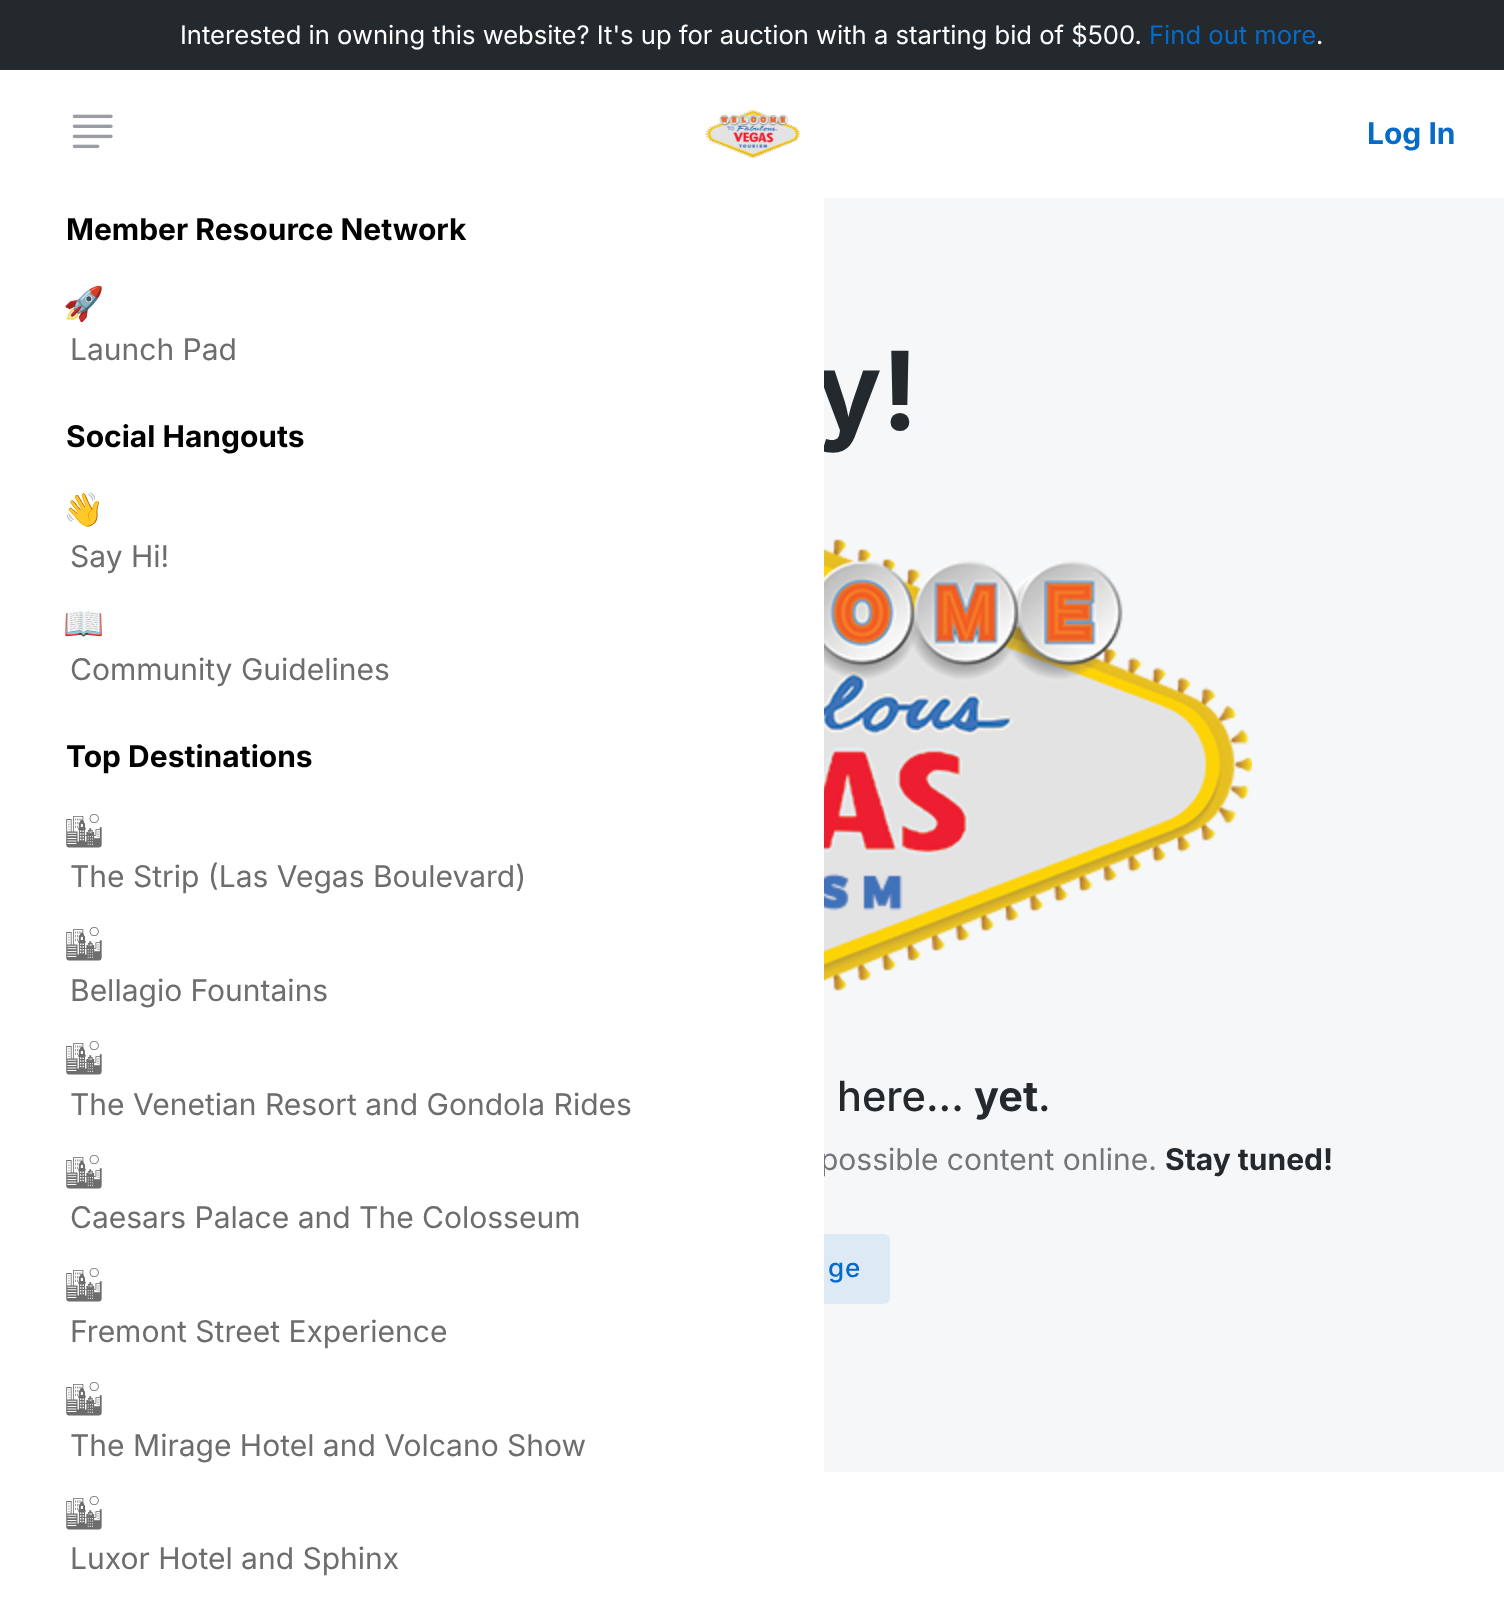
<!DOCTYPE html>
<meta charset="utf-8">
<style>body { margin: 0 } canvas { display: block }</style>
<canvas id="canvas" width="1504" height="1616"></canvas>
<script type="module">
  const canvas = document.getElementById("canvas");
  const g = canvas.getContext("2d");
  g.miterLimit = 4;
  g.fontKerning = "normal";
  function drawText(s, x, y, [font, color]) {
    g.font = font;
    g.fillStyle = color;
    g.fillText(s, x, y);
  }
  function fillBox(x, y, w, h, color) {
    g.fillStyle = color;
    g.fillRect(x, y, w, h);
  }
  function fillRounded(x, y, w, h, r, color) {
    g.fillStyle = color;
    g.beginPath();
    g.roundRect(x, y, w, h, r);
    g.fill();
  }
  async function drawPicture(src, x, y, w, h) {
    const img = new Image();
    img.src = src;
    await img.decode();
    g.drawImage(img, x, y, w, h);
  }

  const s1 = ["25.6px Inter", "#FFFFFF"];
  const s2 = ["25.6px Inter", "#066AC9"];
  const s3 = ["bold 30px Inter", "#066AC9"];
  const s4 = ["bold 109px Inter", "#24292D"];
  const s5 = ["30px Inter", "#747579"];
  const s6 = ["bold 30px Inter", "#000000"];
  const s7 = ["33px Noto Color Emoji", "#6D6D6D"];
  const s8 = ["30px Inter", "#6D6D6D"];
  const s9 = ["33px Noto Emoji", "#6D6D6D"];
  const s10 = ["500 41.5px Inter", "#24292D"];
  const s11 = ["bold 41.5px Inter", "#24292D"];
  const s12 = ["bold 30px Inter", "#24292D"];
  const s13 = ["500 26px Inter", "#066AC9"];

  fillBox(0, 0, 1504, 1616, "#FFFFFF");
  fillBox(0, 0, 1504, 70, "#24292D");
  drawText("Interested in owning this website? It's up for auction with a starting bid of $500.", 180, 44, s1);
  drawText("Find out more", 1149, 44, s2);
  drawText(".", 1316, 44, s1);
  await drawPicture("pic1.png", 72, 114, 41, 35);
  await drawPicture("pic2.png", 705, 110, 95, 49);
  drawText("Log In", 1367, 144, s3);
  fillBox(824, 198, 680, 1274, "#F5F7F9");
  drawText("y!", 816, 430, s4);
  drawText("possible content online.", 820, 1170, s5);
  fillRounded(614, 1234, 276, 70, 6, "#DDE9F4");
  fillBox(614, 370, 210, 934, "#FFFFFF");
  drawText("Member Resource Network", 66, 240, s6);
  drawText("🚀", 63, 315, s7);
  drawText("Launch Pad", 70, 360, s8);
  drawText("Social Hangouts", 66, 447, s6);
  drawText("👋", 63, 521, s7);
  drawText("Say Hi!", 70, 567, s8);
  drawText("📖", 63, 635, s7);
  drawText("Community Guidelines", 70, 680, s8);
  drawText("Top Destinations", 66, 767, s6);
  drawText("🏙", 63, 842, s9);
  drawText("The Strip (Las Vegas Boulevard)", 70, 887, s8);
  drawText("🏙", 63, 955, s9);
  drawText("Bellagio Fountains", 70, 1001, s8);
  drawText("🏙", 63, 1069, s9);
  drawText("The Venetian Resort and Gondola Rides", 70, 1115, s8);
  drawText("🏙", 63, 1183, s9);
  drawText("Caesars Palace and The Colosseum", 70, 1228, s8);
  drawText("🏙", 63, 1296, s9);
  drawText("Fremont Street Experience", 70, 1342, s8);
  drawText("🏙", 63, 1410, s9);
  drawText("The Mirage Hotel and Volcano Show", 70, 1456, s8);
  drawText("🏙", 63, 1524, s9);
  drawText("Luxor Hotel and Sphinx", 70, 1569, s8);
  await drawPicture("pic3.png", 824, 539, 428, 452);
  drawText("here...", 837, 1111, s10);
  drawText("yet", 974, 1111, s11);
  drawText(".", 1038, 1111, s10);
  drawText("Stay tuned!", 1165, 1170, s12);
  g.letterSpacing = "1px";
  drawText("ge", 828, 1277, s13);
</script>
